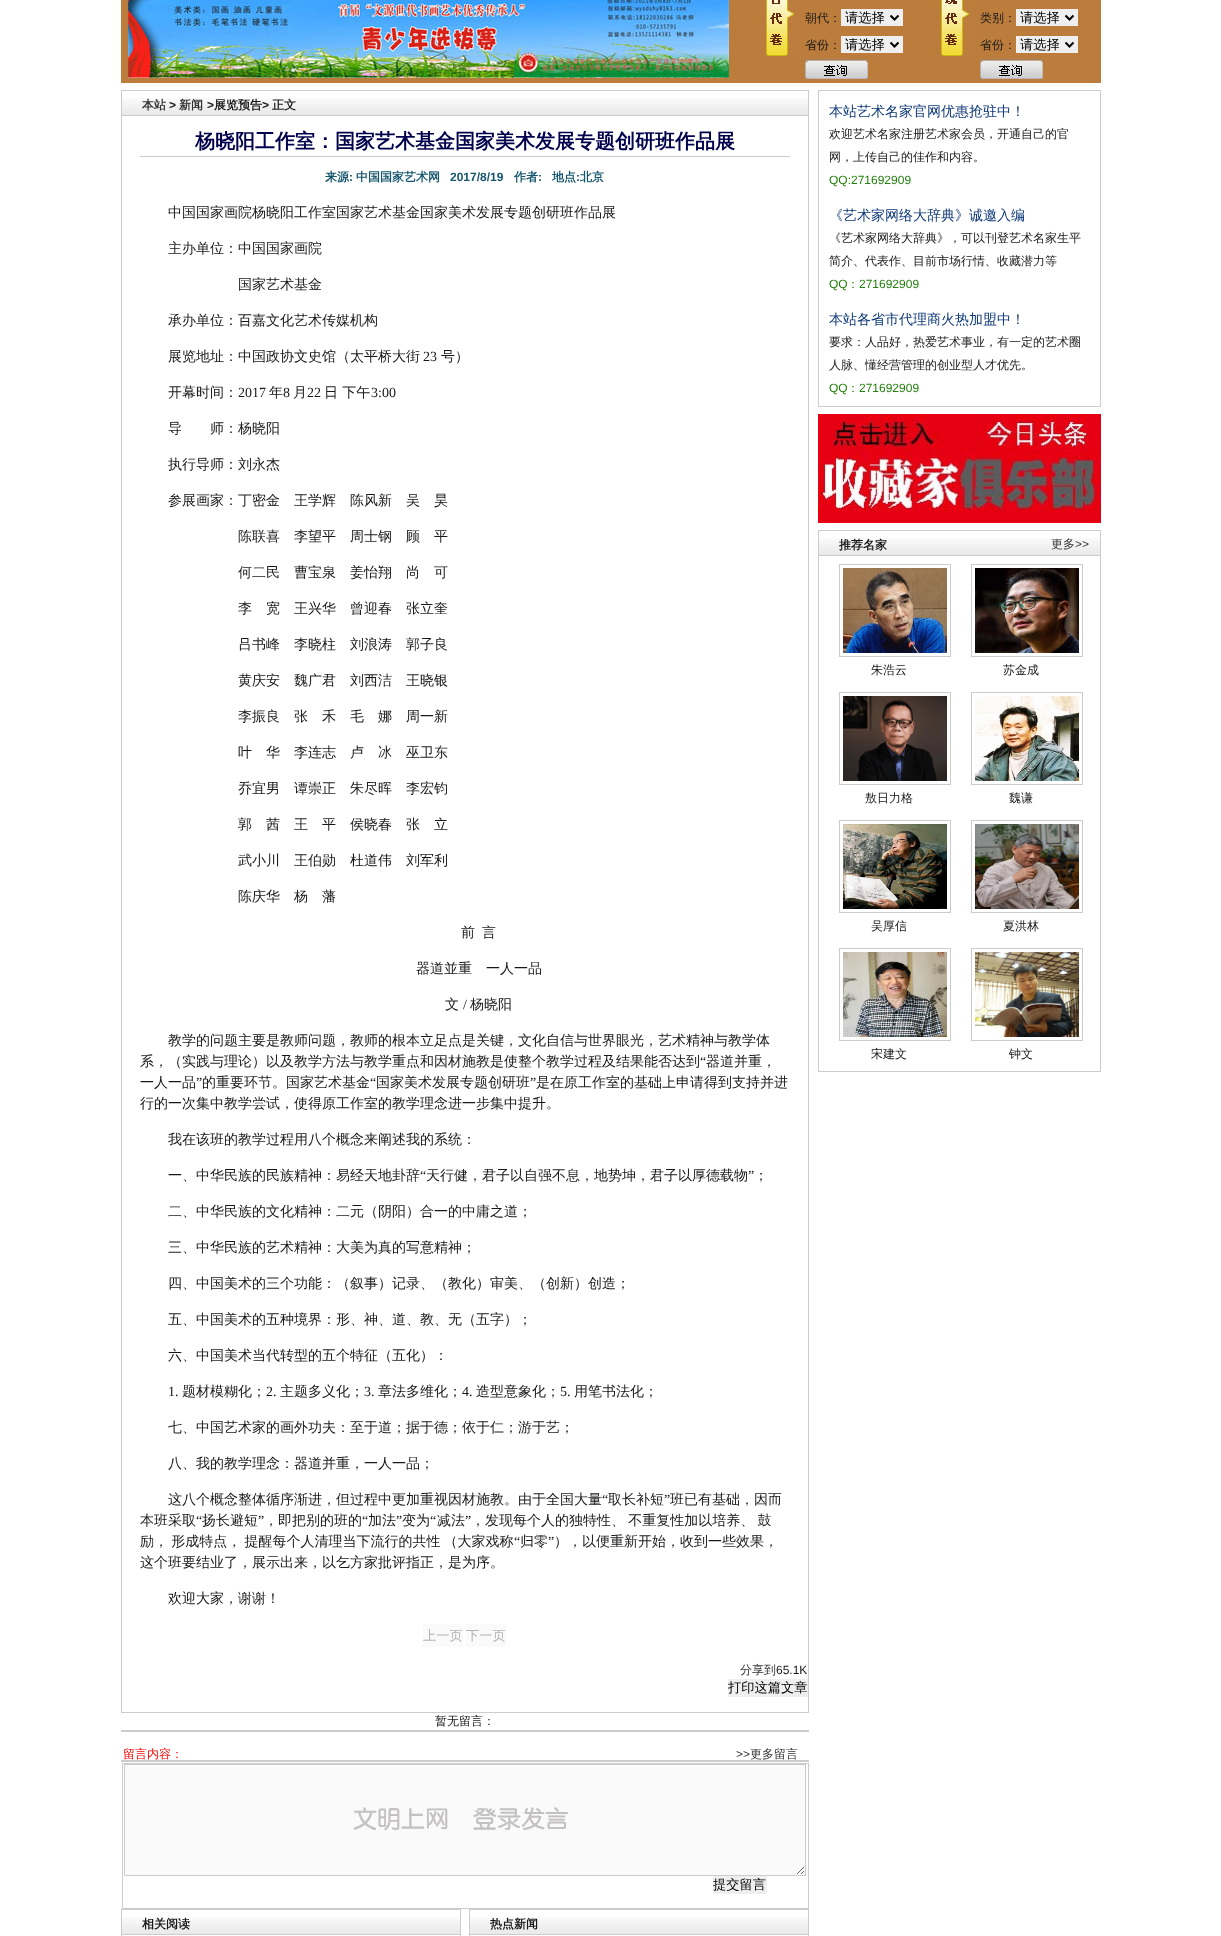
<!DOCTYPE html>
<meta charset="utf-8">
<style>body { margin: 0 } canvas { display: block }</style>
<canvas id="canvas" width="1221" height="1936"></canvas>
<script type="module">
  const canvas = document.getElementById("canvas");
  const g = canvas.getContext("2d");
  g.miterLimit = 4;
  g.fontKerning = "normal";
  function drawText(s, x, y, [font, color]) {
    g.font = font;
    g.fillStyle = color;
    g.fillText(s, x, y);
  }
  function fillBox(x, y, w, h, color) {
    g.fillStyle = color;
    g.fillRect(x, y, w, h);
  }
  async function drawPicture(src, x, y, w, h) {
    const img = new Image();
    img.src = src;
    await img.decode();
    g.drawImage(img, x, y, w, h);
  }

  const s1 = ["500 12px WenQuanYi Zen Hei", "#181818"];
  const s2 = ["500 13.25px WenQuanYi Zen Hei", "#000000"];
  const s3 = ["bold 12px WenQuanYi Zen Hei", "#333333"];
  const s4 = ["bold 12px Liberation Sans", "#181818"];
  const s5 = ["bold 12px WenQuanYi Zen Hei", "#181818"];
  const s6 = ["bold 20px WenQuanYi Zen Hei", "#00004C"];
  const s7 = ["bold 12px WenQuanYi Zen Hei", "#15556D"];
  const s8 = ["bold 12px Liberation Sans", "#15556D"];
  const s9 = ["500 14px WenQuanYi Zen Hei", "#181818"];
  const s10 = ["14px Liberation Serif", "#181818"];
  const s11 = ["500 13.25px WenQuanYi Zen Hei", "#B4B4B4"];
  const s12 = ["500 12px WenQuanYi Zen Hei", "#333333"];
  const s13 = ["12px Liberation Sans", "#181818"];
  const s14 = ["500 12px WenQuanYi Zen Hei", "#FF0000"];
  const s15 = ["12px Liberation Sans", "#333333"];
  const s16 = ["500 14px WenQuanYi Zen Hei", "#0E3877"];
  const s17 = ["12px Liberation Sans", "#207F0A"];
  const s18 = ["500 12px WenQuanYi Zen Hei", "#207F0A"];

  fillBox(0, 0, 1221, 1936, "#FFFFFF");
  fillBox(121, 0, 980, 83, "#BC7C3C");
  await drawPicture("pic1.png", 128, 0, 601, 78);
  await drawPicture("pic2.png", 766, 0, 29, 56);
  drawText("朝代：", 805, 22, s1);
  fillBox(841, 9, 62, 17, "#EFEFEF");
  g.beginPath();
  g.moveTo(890.5, 15.5);
  g.lineTo(894.5, 19.5);
  g.lineTo(898.5, 15.5);
  g.strokeStyle = "#000000";
  g.lineWidth = 2;
  g.stroke();
  drawText("请选择", 845, 22, s2);
  drawText("省份：", 805, 49, s1);
  fillBox(841, 36, 62, 17, "#EFEFEF");
  g.beginPath();
  g.moveTo(890.5, 42.5);
  g.lineTo(894.5, 46.5);
  g.lineTo(898.5, 42.5);
  g.stroke();
  drawText("请选择", 845, 49, s2);
  await drawPicture("pic3.png", 805, 59, 63, 20);
  await drawPicture("pic4.png", 941, 0, 29, 56);
  drawText("类别：", 980, 22, s1);
  fillBox(1016, 9, 62, 17, "#EFEFEF");
  g.beginPath();
  g.moveTo(1065.5, 15.5);
  g.lineTo(1069.5, 19.5);
  g.lineTo(1073.5, 15.5);
  g.stroke();
  drawText("请选择", 1020, 22, s2);
  drawText("省份：", 980, 49, s1);
  fillBox(1016, 36, 62, 17, "#EFEFEF");
  g.beginPath();
  g.moveTo(1065.5, 42.5);
  g.lineTo(1069.5, 46.5);
  g.lineTo(1073.5, 42.5);
  g.stroke();
  drawText("请选择", 1020, 49, s2);
  await drawPicture("pic3.png", 980, 59, 63, 20);
  g.strokeStyle = "#CCCCCC";
  g.lineWidth = 1;
  g.strokeRect(121.5, 90.5, 687, 1622);
  await drawPicture("pic5.png", 122, 98, 686, 18);
  drawText("本站", 142, 109, s3);
  drawText(">", 169, 109, s4);
  drawText("新闻", 179, 109, s3);
  drawText(">", 207, 109, s4);
  drawText("展览预告", 214, 109, s5);
  drawText(">", 262, 109, s4);
  drawText("正文", 272, 109, s5);
  fillBox(140, 156, 650, 1, "#CCCCCC");
  drawText("杨晓阳工作室：国家艺术基金国家美术发展专题创研班作品展", 195, 148, s6);
  drawText("来源", 325, 181, s7);
  drawText(":", 349, 181, s8);
  drawText("中国国家艺术网", 356, 181, s7);
  drawText("2017/8/19", 450, 181, s8);
  drawText("作者", 514, 181, s7);
  drawText(":", 538, 181, s8);
  drawText("地点", 552, 181, s7);
  drawText(":", 576, 181, s8);
  drawText("北京", 580, 181, s7);
  drawText("中国国家画院杨晓阳工作室国家艺术基金国家美术发展专题创研班作品展", 168, 217, s9);
  drawText("主办单位：中国国家画院", 168, 253, s9);
  drawText("国家艺术基金", 238, 289, s9);
  drawText("承办单位：百嘉文化艺术传媒机构", 168, 325, s9);
  drawText("展览地址：中国政协文史馆（太平桥大街", 168, 361, s9);
  drawText("23", 423, 361, s10);
  drawText("号）", 441, 361, s9);
  drawText("开幕时间：", 168, 397, s9);
  drawText("2017", 238, 397, s10);
  drawText("年", 269, 397, s9);
  drawText("8", 283, 397, s10);
  drawText("月", 293, 397, s9);
  drawText("22", 307, 397, s10);
  drawText("日 下午", 324, 397, s9);
  drawText("3:00", 371, 397, s10);
  drawText("导　　师：杨晓阳", 168, 433, s9);
  drawText("执行导师：刘永杰", 168, 469, s9);
  drawText("参展画家：丁密金　王学辉　陈风新　吴　昊", 168, 505, s9);
  drawText("陈联喜　李望平　周士钢　顾　平", 238, 541, s9);
  drawText("何二民　曹宝泉　姜怡翔　尚　可", 238, 577, s9);
  drawText("李　宽　王兴华　曾迎春　张立奎", 238, 613, s9);
  drawText("吕书峰　李晓柱　刘浪涛　郭子良", 238, 649, s9);
  drawText("黄庆安　魏广君　刘西洁　王晓银", 238, 685, s9);
  drawText("李振良　张　禾　毛　娜　周一新", 238, 721, s9);
  drawText("叶　华　李连志　卢　冰　巫卫东", 238, 757, s9);
  drawText("乔宜男　谭崇正　朱尽晖　李宏钧", 238, 793, s9);
  drawText("郭　茜　王　平　侯晓春　张　立", 238, 829, s9);
  drawText("武小川　王伯勋　杜道伟　刘军利", 238, 865, s9);
  drawText("陈庆华　杨　藩", 238, 901, s9);
  drawText("前", 461, 937, s9);
  drawText("言", 482, 937, s9);
  drawText("器道並重　一人一品", 416, 973, s9);
  drawText("文", 445, 1009, s9);
  drawText("/", 463, 1009, s10);
  drawText("杨晓阳", 470, 1009, s9);
  drawText("教学的问题主要是教师问题，教师的根本立足点是关键，文化自信与世界眼光，艺术精神与教学体", 168, 1045, s9);
  drawText("系，（实践与理论）以及教学方法与教学重点和因材施教是使整个教学过程及结果能否达到", 140, 1066, s9);
  drawText("“", 700, 1066, s10);
  drawText("器道并重，", 706, 1066, s9);
  drawText("一人一品", 140, 1087, s9);
  drawText("”", 196, 1087, s10);
  drawText("的重要环节。国家艺术基金", 202, 1087, s9);
  drawText("“", 370, 1087, s10);
  drawText("国家美术发展专题创研班", 376, 1087, s9);
  drawText("”", 530, 1087, s10);
  drawText("是在原工作室的基础上申请得到支持并进", 536, 1087, s9);
  drawText("行的一次集中教学尝试，使得原工作室的教学理念进一步集中提升。", 140, 1108, s9);
  drawText("我在该班的教学过程用八个概念来阐述我的系统：", 168, 1144, s9);
  drawText("一、中华民族的民族精神：易经天地卦辞", 168, 1180, s9);
  drawText("“", 420, 1180, s10);
  drawText("天行健，君子以自强不息，地势坤，君子以厚德载物", 426, 1180, s9);
  drawText("”", 748, 1180, s10);
  drawText("；", 754, 1180, s9);
  drawText("二、中华民族的文化精神：二元（阴阳）合一的中庸之道；", 168, 1216, s9);
  drawText("三、中华民族的艺术精神：大美为真的写意精神；", 168, 1252, s9);
  drawText("四、中国美术的三个功能：（叙事）记录、（教化）审美、（创新）创造；", 168, 1288, s9);
  drawText("五、中国美术的五种境界：形、神、道、教、无（五字）；", 168, 1324, s9);
  drawText("六、中国美术当代转型的五个特征（五化）：", 168, 1360, s9);
  drawText("1.", 168, 1396, s10);
  drawText("题材模糊化；", 182, 1396, s9);
  drawText("2.", 266, 1396, s10);
  drawText("主题多义化；", 280, 1396, s9);
  drawText("3.", 364, 1396, s10);
  drawText("章法多维化；", 378, 1396, s9);
  drawText("4.", 462, 1396, s10);
  drawText("造型意象化；", 476, 1396, s9);
  drawText("5.", 560, 1396, s10);
  drawText("用笔书法化；", 574, 1396, s9);
  drawText("七、中国艺术家的画外功夫：至于道；据于德；依于仁；游于艺；", 168, 1432, s9);
  drawText("八、我的教学理念：器道并重，一人一品；", 168, 1468, s9);
  drawText("这八个概念整体循序渐进，但过程中更加重视因材施教。由于全国大量", 168, 1504, s9);
  drawText("“", 602, 1504, s10);
  drawText("取长补短", 608, 1504, s9);
  drawText("”", 664, 1504, s10);
  drawText("班已有基础，因而", 670, 1504, s9);
  drawText("本班采取", 140, 1525, s9);
  drawText("“", 196, 1525, s10);
  drawText("扬长避短", 202, 1525, s9);
  drawText("”", 258, 1525, s10);
  drawText("，即把别的班的", 264, 1525, s9);
  drawText("“", 362, 1525, s10);
  drawText("加法", 368, 1525, s9);
  drawText("”", 396, 1525, s10);
  drawText("变为", 402, 1525, s9);
  drawText("“", 430, 1525, s10);
  drawText("减法", 437, 1525, s9);
  drawText("”", 465, 1525, s10);
  g.wordSpacing = "-1px";
  drawText("，发现每个人的独特性、 不重复性加以培养、 鼓", 471, 1525, s9);
  drawText("励， 形成特点， 提醒每个人清理当下流行的共性 （大家戏称", 140, 1546, s9);
  g.wordSpacing = "0px";
  drawText("“", 514, 1546, s10);
  drawText("归零", 520, 1546, s9);
  drawText("”", 548, 1546, s10);
  drawText("），以便重新开始，收到一些效果，", 554, 1546, s9);
  drawText("这个班要结业了，展示出来，以乞方家批评指正，是为序。", 140, 1567, s9);
  drawText("欢迎大家，谢谢！", 168, 1603, s9);
  fillBox(423, 1624, 40, 23, "#FAFAFA");
  drawText("上一页", 423, 1640, s11);
  fillBox(466, 1624, 40, 23, "#FAFAFA");
  drawText("下一页", 466, 1640, s11);
  drawText("分享到", 740, 1674, s12);
  drawText("65.1K", 776, 1674, s13);
  fillBox(728, 1679, 80, 18, "#EFEFEF");
  g.save();
  g.beginPath();
  g.rect(728, 1679, 80, 18);
  g.clip();
  drawText("打印这篇文章", 728, 1692, s2);
  g.restore();
  drawText("暂无留言：", 435, 1725, s1);
  fillBox(121, 1730, 688, 2, "#CCCCCC");
  drawText("留言内容：", 123, 1758, s14);
  drawText(">>", 736, 1758, s15);
  drawText("更多留言", 750, 1758, s12);
  fillBox(121, 1760, 688, 2, "#CCCCCC");
  g.strokeRect(122.5, 1763.5, 686, 145);
  await drawPicture("pic6.png", 125, 1765, 680, 110);
  g.strokeRect(124.5, 1764.5, 681, 111);
  fillBox(713, 1876, 54, 18, "#EFEFEF");
  drawText("提交留言", 713, 1889, s2);
  g.strokeRect(121.5, 1909.5, 339, 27);
  await drawPicture("pic7.png", 122, 1917, 338, 18);
  drawText("相关阅读", 142, 1928, s5);
  g.strokeRect(469.5, 1909.5, 339, 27);
  await drawPicture("pic7.png", 470, 1917, 338, 18);
  drawText("热点新闻", 490, 1928, s5);
  g.strokeRect(818.5, 90.5, 282, 316);
  drawText("本站艺术名家官网优惠抢驻中！", 829, 116, s16);
  drawText("欢迎艺术名家注册艺术家会员，开通自己的官", 829, 138, s1);
  drawText("网，上传自己的佳作和内容。", 829, 161, s1);
  drawText("QQ:271692909", 829, 184, s17);
  drawText("《艺术家网络大辞典》诚邀入编", 829, 220, s16);
  drawText("《艺术家网络大辞典》，可以刊登艺术名家生平", 829, 242, s1);
  drawText("简介、代表作、目前市场行情、收藏潜力等", 829, 265, s1);
  drawText("QQ", 829, 288, s17);
  drawText("：", 847, 288, s18);
  drawText("271692909", 859, 288, s17);
  drawText("本站各省市代理商火热加盟中！", 829, 324, s16);
  drawText("要求：人品好，热爱艺术事业，有一定的艺术圈", 829, 346, s1);
  drawText("人脉、懂经营管理的创业型人才优先。", 829, 369, s1);
  drawText("QQ", 829, 392, s17);
  drawText("：", 847, 392, s18);
  drawText("271692909", 859, 392, s17);
  await drawPicture("pic8.png", 818, 414, 283, 109);
  g.strokeRect(818.5, 530.5, 282, 541);
  await drawPicture("pic9.png", 819, 538, 281, 18);
  drawText("推荐名家", 839, 549, s5);
  drawText("更多", 1051, 548, s12);
  drawText(">>", 1075, 548, s15);
  g.strokeRect(839.5, 564.5, 111, 92);
  await drawPicture("pic10.png", 843, 568, 104, 85);
  drawText("朱浩云", 871, 674, s1);
  g.strokeRect(971.5, 564.5, 111, 92);
  await drawPicture("pic11.png", 975, 568, 104, 85);
  drawText("苏金成", 1003, 674, s1);
  g.strokeRect(839.5, 692.5, 111, 92);
  await drawPicture("pic12.png", 843, 696, 104, 85);
  drawText("敖日力格", 865, 802, s1);
  g.strokeRect(971.5, 692.5, 111, 92);
  await drawPicture("pic13.png", 975, 696, 104, 85);
  drawText("魏谦", 1009, 802, s1);
  g.strokeRect(839.5, 820.5, 111, 92);
  await drawPicture("pic14.png", 843, 824, 104, 85);
  drawText("吴厚信", 871, 930, s1);
  g.strokeRect(971.5, 820.5, 111, 92);
  await drawPicture("pic15.png", 975, 824, 104, 85);
  drawText("夏洪林", 1003, 930, s1);
  g.strokeRect(839.5, 948.5, 111, 92);
  await drawPicture("pic16.png", 843, 952, 104, 85);
  drawText("宋建文", 871, 1058, s1);
  g.strokeRect(971.5, 948.5, 111, 92);
  await drawPicture("pic17.png", 975, 952, 104, 85);
  drawText("钟文", 1009, 1058, s1);
</script>
